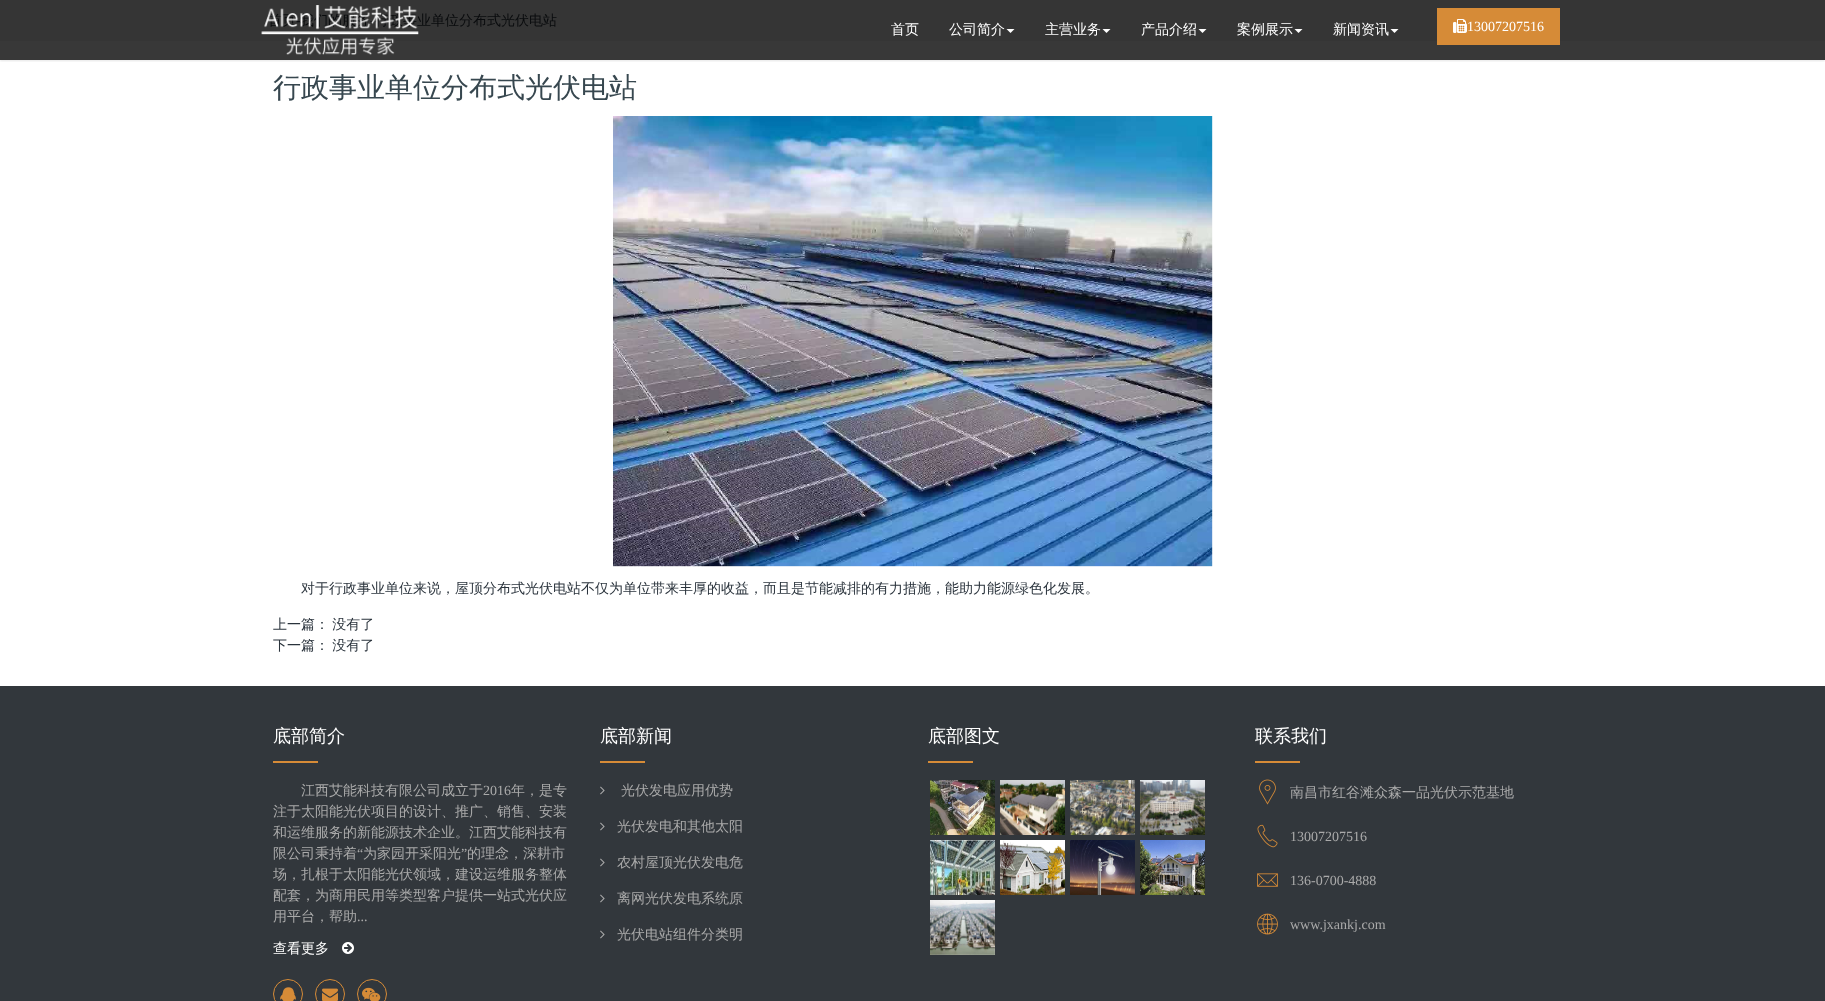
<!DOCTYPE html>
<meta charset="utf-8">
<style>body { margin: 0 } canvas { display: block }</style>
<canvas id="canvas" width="1825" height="1001"></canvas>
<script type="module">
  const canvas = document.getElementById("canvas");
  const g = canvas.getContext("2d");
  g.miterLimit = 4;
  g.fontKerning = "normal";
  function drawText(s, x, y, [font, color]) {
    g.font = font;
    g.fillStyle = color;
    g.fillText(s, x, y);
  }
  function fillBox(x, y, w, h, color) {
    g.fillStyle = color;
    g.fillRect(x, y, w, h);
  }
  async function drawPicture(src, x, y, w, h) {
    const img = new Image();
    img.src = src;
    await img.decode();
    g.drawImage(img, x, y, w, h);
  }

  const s1 = ["500 14px WenQuanYi Zen Hei", "#090B0D"];
  const s2 = ["14px Liberation Serif", "#090B0D"];
  const s3 = ["500 14px WenQuanYi Zen Hei", "#FFFFFF"];
  const s4 = ["14px Liberation Serif", "#FFFFFF"];
  const s5 = ["500 28px WenQuanYi Zen Hei", "#37474F"];
  const s6 = ["500 14px WenQuanYi Zen Hei", "#2A333C"];
  const s7 = ["500 18px WenQuanYi Zen Hei", "#FFFFFF"];
  const s8 = ["500 14px WenQuanYi Zen Hei", "#AAAAAA"];
  const s9 = ["14px Liberation Serif", "#AAAAAA"];

  fillBox(0, 0, 1825, 1001, "#353535");
  drawText("首页", 268, 25, s1);
  drawText("-", 296, 25, s2);
  drawText("我们的服务", 300, 25, s1);
  drawText("-", 370, 25, s2);
  drawText("行政事业单位分布式光伏电站", 375, 25, s1);
  fillBox(0, 60, 1825, 626, "#FFFFFF");
  fillBox(0, 41, 1825, 19, "#383838");
  g.save();
  g.beginPath();
  g.rect(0, 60, 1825, 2);
  g.clip();
  g.fillStyle = "rgba(0, 0, 0, 0.1)";
  g.filter = "blur(1px)";
  g.beginPath();
  g.rect(0, 1, 1825, 60);
  g.fill();
  g.filter = "none";
  g.restore();
  await drawPicture("pic1.png", 261, 5, 158, 50);
  drawText("首页", 891, 34, s3);
  drawText("公司简介", 949, 34, s3);
  g.beginPath();
  g.moveTo(1006.5, 29);
  g.lineTo(1014.5, 29);
  g.lineTo(1010.5, 33);
  g.closePath();
  g.fill();
  drawText("主营业务", 1045, 34, s3);
  g.beginPath();
  g.moveTo(1102.5, 29);
  g.lineTo(1110.5, 29);
  g.lineTo(1106.5, 33);
  g.closePath();
  g.fill();
  drawText("产品介绍", 1141, 34, s3);
  g.beginPath();
  g.moveTo(1198.5, 29);
  g.lineTo(1206.5, 29);
  g.lineTo(1202.5, 33);
  g.closePath();
  g.fill();
  drawText("案例展示", 1237, 34, s3);
  g.beginPath();
  g.moveTo(1294.5, 29);
  g.lineTo(1302.5, 29);
  g.lineTo(1298.5, 33);
  g.closePath();
  g.fill();
  drawText("新闻资讯", 1333, 34, s3);
  g.beginPath();
  g.moveTo(1390.5, 29);
  g.lineTo(1398.5, 29);
  g.lineTo(1394.5, 33);
  g.closePath();
  g.fill();
  fillBox(1437, 8, 123, 37, "#D68B37");
  await drawPicture("pic2.png", 1453, 19, 14, 14);
  drawText("13007207516", 1467, 31, s4);
  drawText("行政事业单位分布式光伏电站", 273, 97, s5);
  await drawPicture("pic3.png", 613, 116, 600, 451);
  drawText("对于行政事业单位来说，屋顶分布式光伏电站不仅为单位带来丰厚的收益，而且是节能减排的有力措施，能助力能源绿色化发展。", 301, 593, s6);
  g.wordSpacing = "-1px";
  drawText("上一篇： 没有了", 273, 629, s6);
  drawText("下一篇： 没有了", 273, 650, s6);
  fillBox(0, 686, 1825, 315, "#32373C");
  g.wordSpacing = "0px";
  drawText("底部简介", 273, 742, s7);
  fillBox(273, 761, 45, 2, "#D68B37");
  drawText("江西艾能科技有限公司成立于", 301, 795, s8);
  drawText("2016", 483, 795, s9);
  drawText("年，是专", 511, 795, s8);
  drawText("注于太阳能光伏项目的设计、推广、销售、安装", 273, 816, s8);
  drawText("和运维服务的新能源技术企业。江西艾能科技有", 273, 837, s8);
  drawText("限公司秉持着", 273, 858, s8);
  drawText("“", 357, 858, s9);
  drawText("为家园开采阳光", 363, 858, s8);
  drawText("”", 461, 858, s9);
  drawText("的理念，深耕市", 467, 858, s8);
  drawText("场，扎根于太阳能光伏领域，建设运维服务整体", 273, 879, s8);
  drawText("配套，为商用民用等类型客户提供一站式光伏应", 273, 900, s8);
  drawText("用平台，帮助", 273, 921, s8);
  drawText("...", 357, 921, s9);
  drawText("查看更多", 273, 953, s3);
  await drawPicture("pic4.png", 342, 942, 12, 12);
  g.beginPath();
  g.arc(288, 994, 14.5, 0, Math.PI * 2);
  g.strokeStyle = "#D68B37";
  g.stroke();
  await drawPicture("pic5.png", 280, 987, 16, 14);
  g.beginPath();
  g.arc(330, 994, 14.5, 0, Math.PI * 2);
  g.stroke();
  await drawPicture("pic6.png", 322, 988, 16, 13);
  g.beginPath();
  g.arc(372, 994, 14.5, 0, Math.PI * 2);
  g.stroke();
  await drawPicture("pic7.png", 362, 987, 19, 14);
  drawText("底部新闻", 600, 742, s7);
  fillBox(600, 761, 45, 2, "#D68B37");
  await drawPicture("pic8.png", 600, 786, 5, 9);
  drawText("光伏发电应用优势", 621, 795, s8);
  await drawPicture("pic8.png", 600, 822, 5, 9);
  drawText("光伏发电和其他太阳", 617, 831, s8);
  await drawPicture("pic8.png", 600, 858, 5, 9);
  drawText("农村屋顶光伏发电危", 617, 867, s8);
  await drawPicture("pic8.png", 600, 894, 5, 9);
  drawText("离网光伏发电系统原", 617, 903, s8);
  await drawPicture("pic8.png", 600, 930, 5, 9);
  drawText("光伏电站组件分类明", 617, 939, s8);
  drawText("底部图文", 928, 742, s7);
  fillBox(928, 761, 45, 2, "#D68B37");
  await drawPicture("pic9.png", 930, 780, 65, 55);
  await drawPicture("pic10.png", 1000, 780, 65, 55);
  await drawPicture("pic11.png", 1070, 780, 65, 55);
  await drawPicture("pic12.png", 1140, 780, 65, 55);
  await drawPicture("pic13.png", 930, 840, 65, 55);
  await drawPicture("pic14.png", 1000, 840, 65, 55);
  await drawPicture("pic15.png", 1070, 840, 65, 55);
  await drawPicture("pic16.png", 1140, 840, 65, 55);
  await drawPicture("pic17.png", 930, 900, 65, 55);
  drawText("联系我们", 1255, 742, s7);
  fillBox(1255, 761, 45, 2, "#D68B37");
  await drawPicture("pic18.png", 1259, 779, 17, 26);
  drawText("南昌市红谷滩众森一品光伏示范基地", 1290, 797, s8);
  await drawPicture("pic19.png", 1257, 824, 21, 24);
  drawText("13007207516", 1290, 841, s9);
  await drawPicture("pic20.png", 1257, 873, 21, 14);
  drawText("136-0700-4888", 1290, 885, s9);
  await drawPicture("pic21.png", 1257, 913, 21, 22);
  drawText("www.jxankj.com", 1290, 929, s9);
</script>
